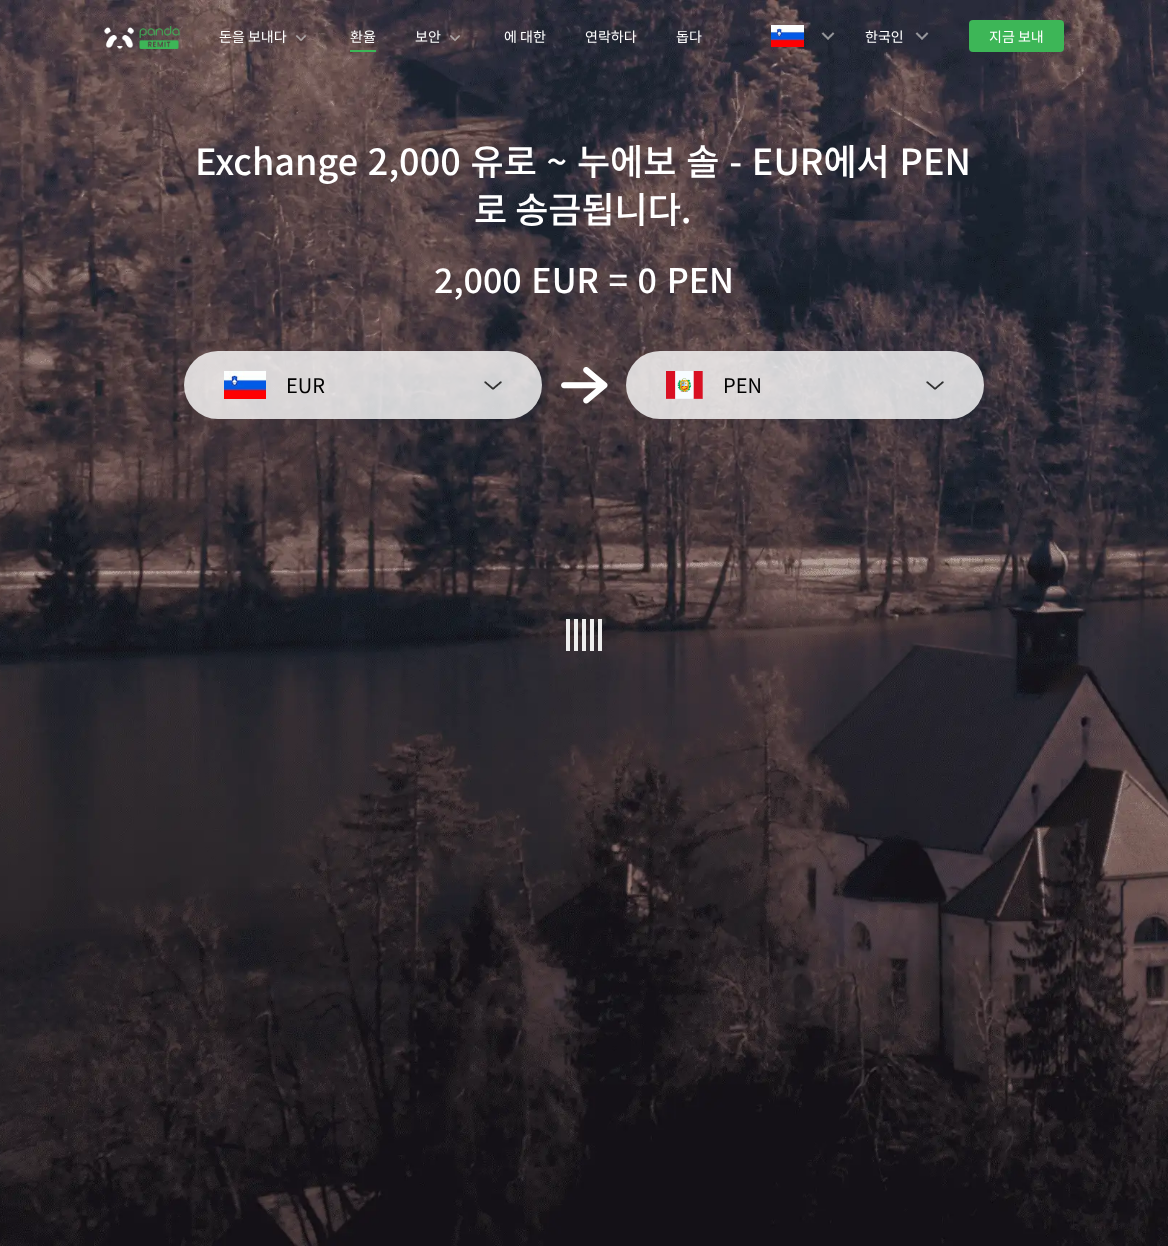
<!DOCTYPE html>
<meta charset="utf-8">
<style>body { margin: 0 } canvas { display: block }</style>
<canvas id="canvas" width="1168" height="1246"></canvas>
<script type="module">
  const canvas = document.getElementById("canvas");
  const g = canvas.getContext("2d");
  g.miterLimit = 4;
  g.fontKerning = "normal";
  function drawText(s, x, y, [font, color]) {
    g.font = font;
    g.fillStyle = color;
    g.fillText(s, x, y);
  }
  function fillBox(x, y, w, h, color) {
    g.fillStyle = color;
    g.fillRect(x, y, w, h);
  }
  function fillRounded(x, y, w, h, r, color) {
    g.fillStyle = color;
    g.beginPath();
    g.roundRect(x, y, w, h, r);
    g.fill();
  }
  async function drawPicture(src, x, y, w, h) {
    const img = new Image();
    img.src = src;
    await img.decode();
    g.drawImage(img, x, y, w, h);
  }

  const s1 = ["14px Noto Sans CJK SC", "#FFFFFF"];
  const s2 = ["500 36px Noto Sans CJK SC", "#FFFFFF"];
  const s3 = ["500 34px Noto Sans CJK SC", "#FFFFFF"];
  const s4 = ["20px Noto Sans CJK SC", "#000000"];

  fillBox(0, 0, 1168, 1246, "#FFFFFF");
  await drawPicture("pic1.png", 0, 0, 1168, 1246);
  await drawPicture("pic2.png", 104, 25, 76, 24);
  drawText("돈을 보내다", 219, 42, s1);
  await drawPicture("pic3.png", 295, 35, 12, 7);
  drawText("환율", 350, 42, s1);
  fillBox(350, 50, 26, 2, "#3DB657");
  drawText("보안", 415, 42, s1);
  await drawPicture("pic4.png", 449, 35, 12, 7);
  drawText("에 대한", 504, 42, s1);
  drawText("연락하다", 585, 42, s1);
  drawText("돕다", 676, 42, s1);
  await drawPicture("pic5.png", 771, 25, 33, 22);
  await drawPicture("pic6.png", 821, 32, 14, 8);
  drawText("한국인", 865, 42, s1);
  await drawPicture("pic7.png", 915, 32, 14, 8);
  fillRounded(969, 20, 95, 32, 4, "#3DB657");
  drawText("지금 보내", 989, 42, s1);
  g.wordSpacing = "1.75px";
  drawText("Exchange 2,000 유로 ~ 누에보 솔 - EUR에서 PEN", 195, 175, s2);
  g.wordSpacing = "0px";
  drawText("로 송금됩니다.", 474, 223, s2);
  g.wordSpacing = "2px";
  drawText("2,000 EUR = 0 PEN", 434, 293, s3);
  fillRounded(184, 351, 358, 68, 34, "rgba(255, 255, 255, 0.8)");
  await drawPicture("pic8.png", 224, 371, 42, 28);
  g.wordSpacing = "0px";
  drawText("EUR", 286, 393, s4);
  await drawPicture("pic9.png", 484, 381, 18, 9);
  await drawPicture("pic10.png", 561, 367, 47, 37);
  fillRounded(626, 351, 358, 68, 34, "rgba(255, 255, 255, 0.8)");
  await drawPicture("pic11.png", 666, 371, 37, 28);
  drawText("PEN", 723, 393, s4);
  await drawPicture("pic12.png", 926, 381, 18, 9);
  fillBox(566, 619, 4, 32, "#EEEEEE");
  fillBox(574, 619, 4, 32, "#EEEEEE");
  fillBox(582, 619, 4, 32, "#EEEEEE");
  fillBox(590, 619, 4, 32, "#EEEEEE");
  fillBox(598, 619, 4, 32, "#EEEEEE");
</script>
